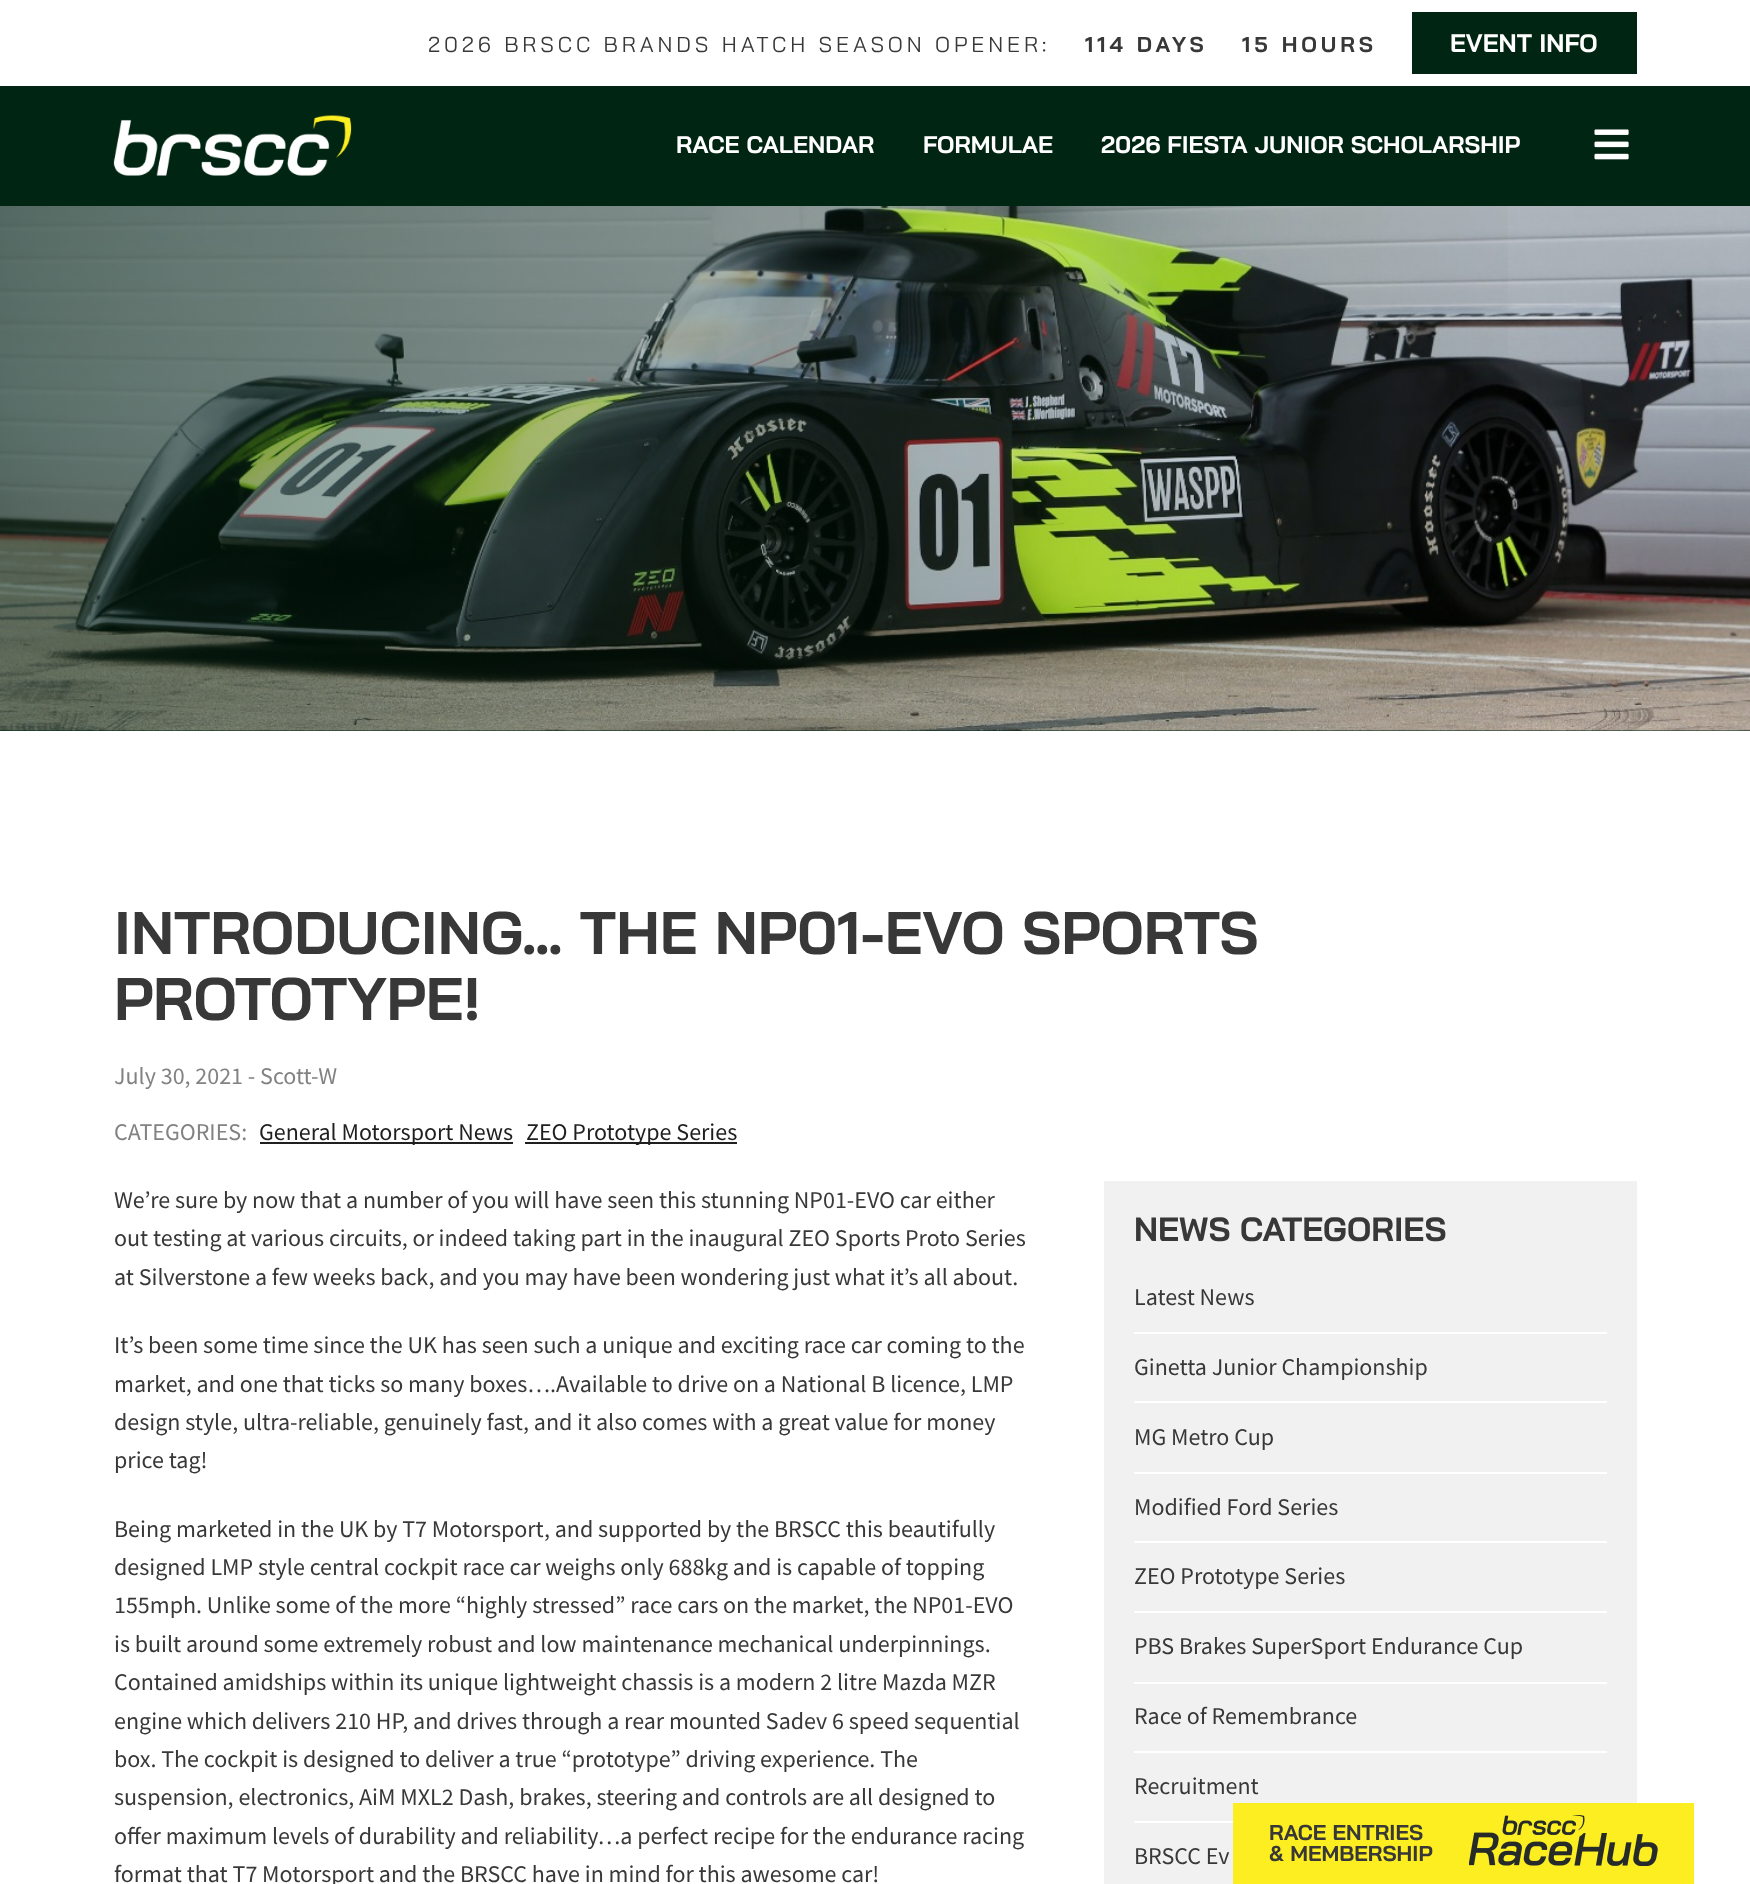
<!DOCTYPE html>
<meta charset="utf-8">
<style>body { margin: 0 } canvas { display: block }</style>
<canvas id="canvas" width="1750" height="1884"></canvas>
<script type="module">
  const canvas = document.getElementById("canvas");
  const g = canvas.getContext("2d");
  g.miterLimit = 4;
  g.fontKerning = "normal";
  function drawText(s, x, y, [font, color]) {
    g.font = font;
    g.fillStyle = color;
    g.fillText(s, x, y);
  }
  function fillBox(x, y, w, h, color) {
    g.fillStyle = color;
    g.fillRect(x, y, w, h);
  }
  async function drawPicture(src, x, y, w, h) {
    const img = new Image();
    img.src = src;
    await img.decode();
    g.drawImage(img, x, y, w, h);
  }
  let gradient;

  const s1 = ["21.6px Bai Jamjuree", "#383838"];
  const s2 = ["bold 21.6px Bai Jamjuree", "#383838"];
  const s3 = ["bold 25.25px Bai Jamjuree", "#FFFFFF"];
  const s4 = ["bold 24px Bai Jamjuree", "#FFFFFF"];
  const s5 = ["bold 60px Bai Jamjuree", "#383838"];
  const s6 = ["24px Source Sans Pro", "#838283"];
  const s7 = ["24px Source Sans Pro", "#1F1F1F"];
  const s8 = ["24px Source Sans Pro", "#383838"];
  const s9 = ["bold 33.5px Bai Jamjuree", "#383838"];

  fillBox(0, 0, 1750, 1884, "#FFFFFF");
  g.letterSpacing = "3.9px";
  drawText("2026 BRSCC BRANDS HATCH SEASON OPENER:", 428, 52, s1);
  drawText("114 DAYS", 1085, 52, s2);
  drawText("15 HOURS", 1242, 52, s2);
  fillBox(1412, 12, 225, 62, "#002512");
  g.letterSpacing = "0px";
  drawText("EVENT INFO", 1450, 52, s3);
  fillBox(0, 86, 1750, 120, "#002512");
  await drawPicture("pic1.png", 113, 115, 239, 61);
  drawText("RACE CALENDAR", 676, 153, s4);
  drawText("FORMULAE", 923, 153, s4);
  drawText("2026 FIESTA JUNIOR SCHOLARSHIP", 1101, 153, s4);
  await drawPicture("pic2.png", 1594, 129, 35, 31);
  fillBox(0, 730, 1750, 1, "#002512");
  await drawPicture("pic3.png", 0, 206, 1750, 525);
  gradient = g.createLinearGradient(0, 468, 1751, 468);
  gradient.addColorStop(0, "rgba(0, 37, 18, 0.5)");
  gradient.addColorStop(0.9, "rgba(0, 37, 18, 0)");
  g.fillStyle = gradient;
  g.fillRect(0, 206, 1508, 525);
  drawText("INTRODUCING… THE NP01-EVO SPORTS", 114, 954, s5);
  drawText("PROTOTYPE!", 114, 1020, s5);
  drawText("July 30, 2021 - Scott-W", 114, 1084, s6);
  drawText("CATEGORIES:", 114, 1140, s6);
  fillBox(260, 1142, 253, 2, "#1F1F1F");
  drawText("General Motorsport News", 259, 1140, s7);
  fillBox(525, 1142, 212, 2, "#1F1F1F");
  drawText("ZEO Prototype Series", 526, 1140, s7);
  drawText("We’re sure by now that a number of you will have seen this stunning NP01-EVO car either", 114, 1208, s8);
  drawText("out testing at various circuits, or indeed taking part in the inaugural ZEO Sports Proto Series", 114, 1246, s8);
  drawText("at Silverstone a few weeks back, and you may have been wondering just what it’s all about.", 114, 1285, s8);
  drawText("It’s been some time since the UK has seen such a unique and exciting race car coming to the", 114, 1353, s8);
  drawText("market, and one that ticks so many boxes….Available to drive on a National B licence, LMP", 114, 1392, s8);
  drawText("design style, ultra-reliable, genuinely fast, and it also comes with a great value for money", 114, 1430, s8);
  drawText("price tag!", 114, 1468, s8);
  drawText("Being marketed in the UK by T7 Motorsport, and supported by the BRSCC this beautifully", 114, 1537, s8);
  drawText("designed LMP style central cockpit race car weighs only 688kg and is capable of topping", 114, 1575, s8);
  drawText("155mph. Unlike some of the more “highly stressed” race cars on the market, the NP01-EVO", 114, 1613, s8);
  drawText("is built around some extremely robust and low maintenance mechanical underpinnings.", 114, 1652, s8);
  drawText("Contained amidships within its unique lightweight chassis is a modern 2 litre Mazda MZR", 114, 1690, s8);
  drawText("engine which delivers 210 HP, and drives through a rear mounted Sadev 6 speed sequential", 114, 1729, s8);
  drawText("box. The cockpit is designed to deliver a true “prototype” driving experience. The", 114, 1767, s8);
  drawText("suspension, electronics, AiM MXL2 Dash, brakes, steering and controls are all designed to", 114, 1805, s8);
  drawText("offer maximum levels of durability and reliability…a perfect recipe for the endurance racing", 114, 1844, s8);
  drawText("format that T7 Motorsport and the BRSCC have in mind for this awesome car!", 114, 1882, s8);
  fillBox(1104, 1181, 533, 703, "#F1F1F1");
  drawText("NEWS CATEGORIES", 1134, 1241, s9);
  fillBox(1134, 1332, 473, 2, "#FFFFFF");
  drawText("Latest News", 1134, 1305, s8);
  fillBox(1134, 1401, 473, 2, "#FFFFFF");
  drawText("Ginetta Junior Championship", 1134, 1375, s8);
  fillBox(1134, 1472, 473, 2, "#FFFFFF");
  drawText("MG Metro Cup", 1134, 1445, s8);
  fillBox(1134, 1541, 473, 2, "#FFFFFF");
  drawText("Modified Ford Series", 1134, 1515, s8);
  fillBox(1134, 1611, 473, 2, "#FFFFFF");
  drawText("ZEO Prototype Series", 1134, 1584, s8);
  fillBox(1134, 1682, 473, 2, "#FFFFFF");
  drawText("PBS Brakes SuperSport Endurance Cup", 1134, 1654, s8);
  fillBox(1134, 1751, 473, 2, "#FFFFFF");
  drawText("Race of Remembrance", 1134, 1724, s8);
  fillBox(1134, 1821, 99, 2, "#FFFFFF");
  drawText("Recruitment", 1134, 1794, s8);
  drawText("BRSCC Ev", 1134, 1864, s8);
  fillBox(1233, 1803, 461, 81, "#FCEE21");
  drawText("RACE ENTRIES", 1269, 1840, s2);
  drawText("& MEMBERSHIP", 1269, 1861, s2);
  await drawPicture("pic4.png", 1469, 1815, 189, 51);
</script>
